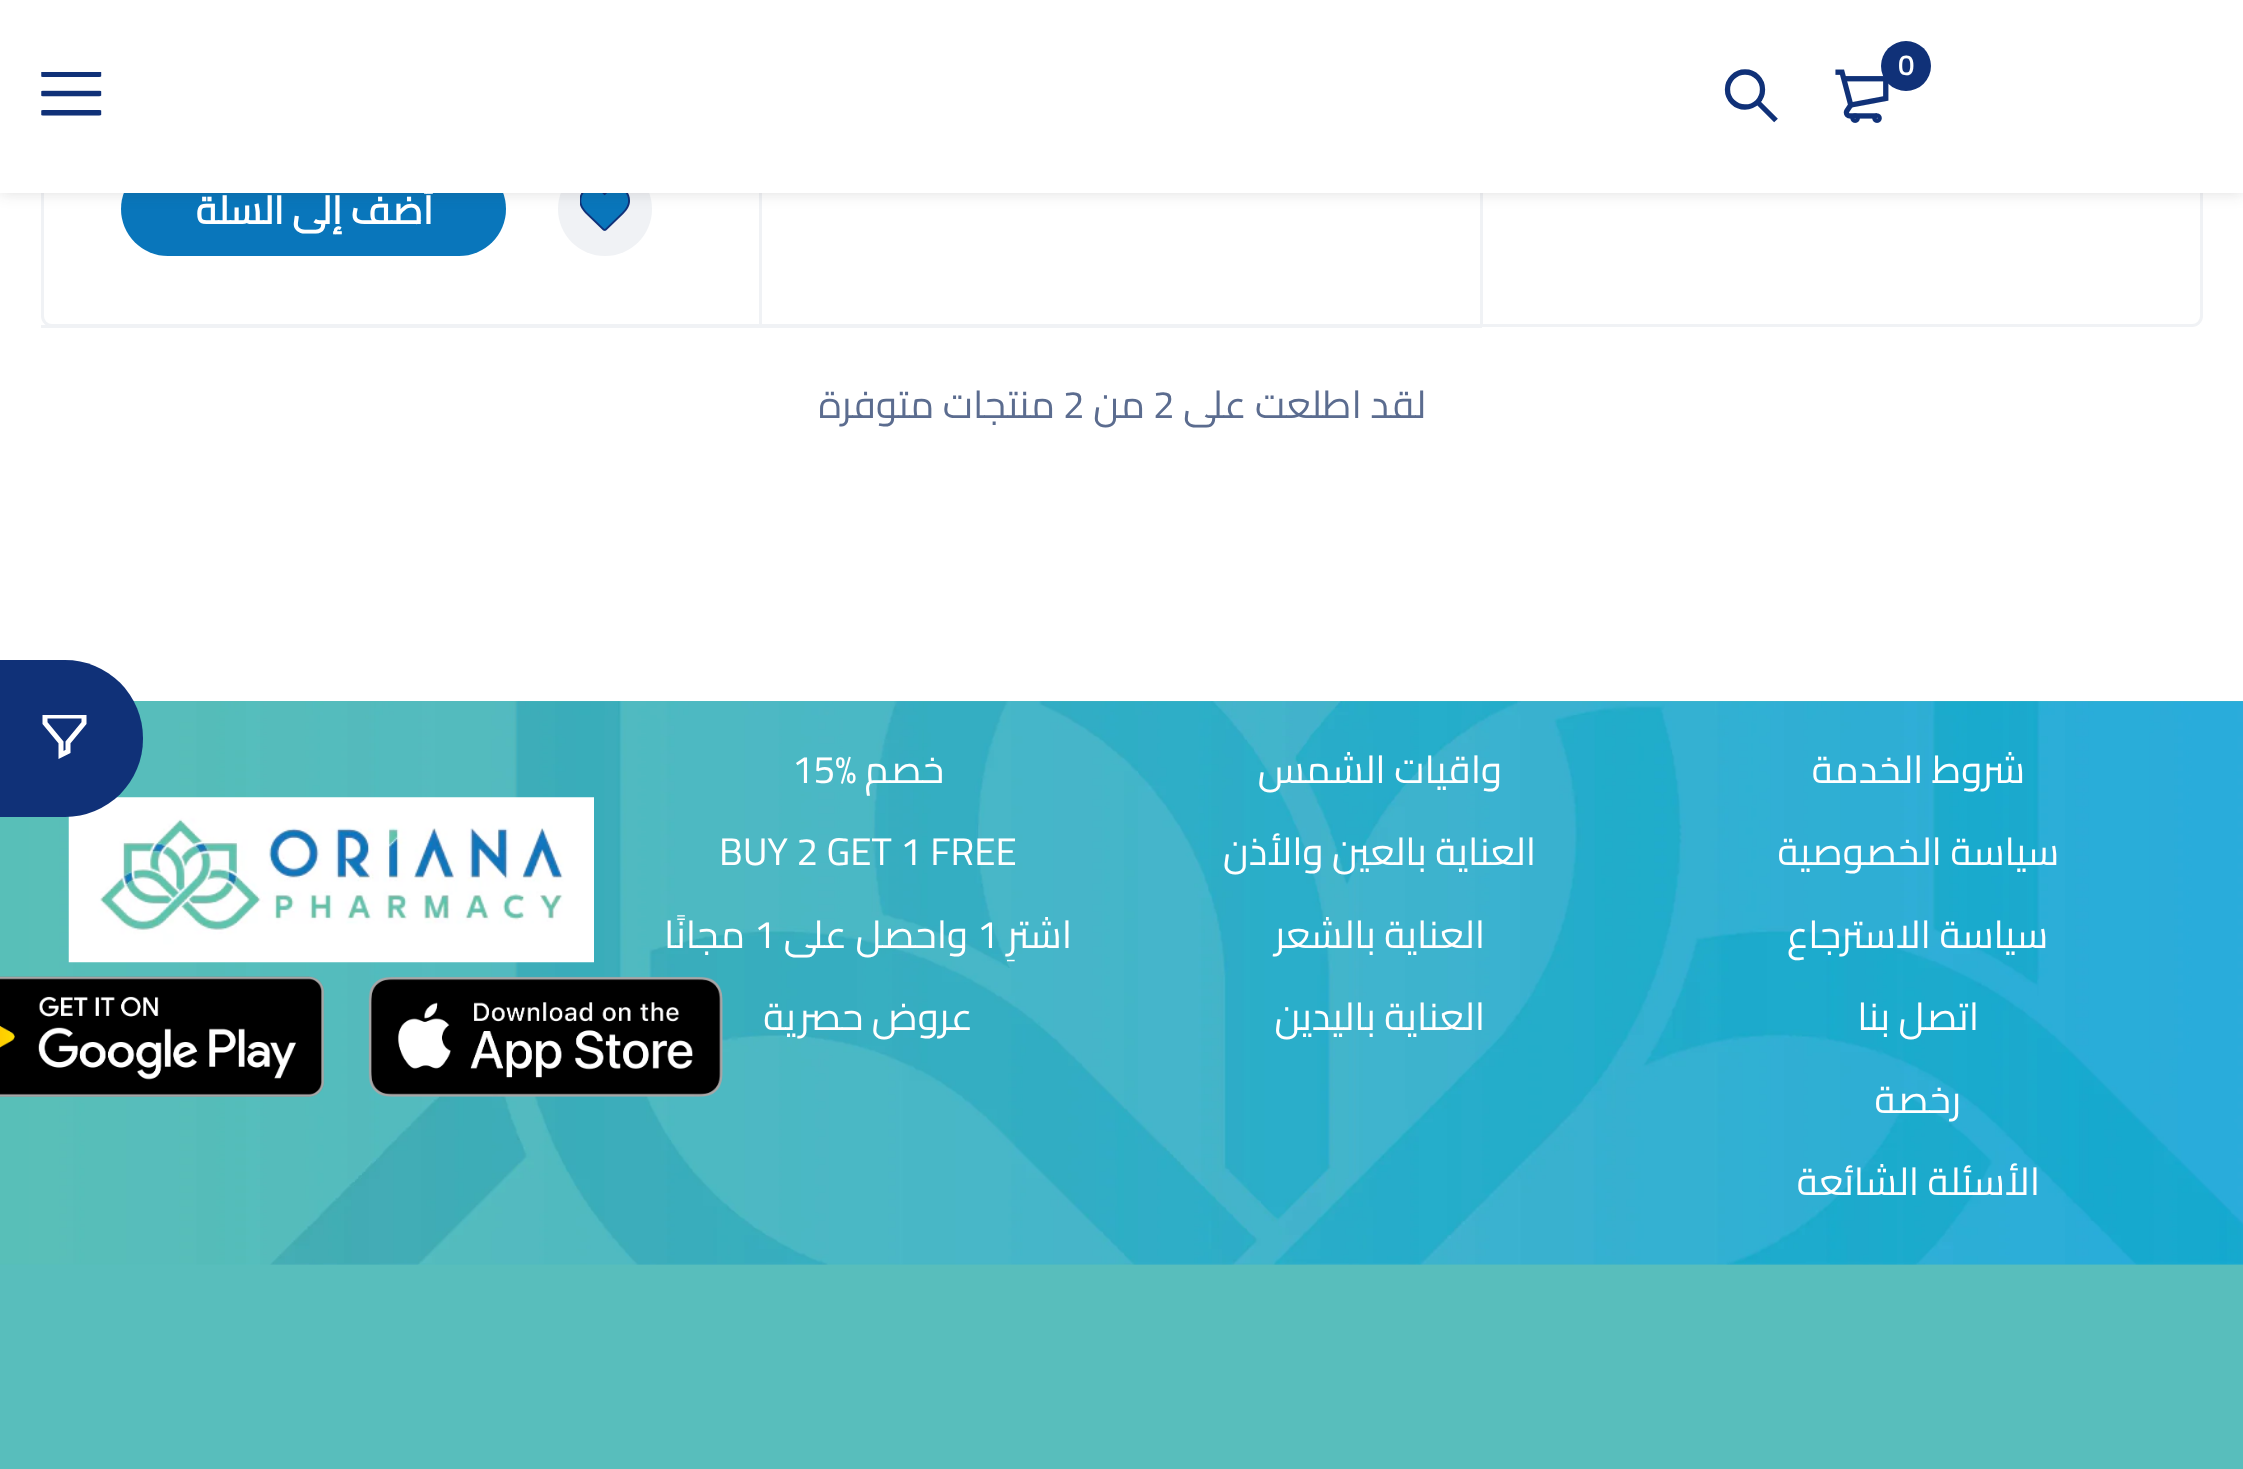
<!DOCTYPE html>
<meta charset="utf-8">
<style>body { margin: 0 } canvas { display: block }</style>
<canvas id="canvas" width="2243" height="1469"></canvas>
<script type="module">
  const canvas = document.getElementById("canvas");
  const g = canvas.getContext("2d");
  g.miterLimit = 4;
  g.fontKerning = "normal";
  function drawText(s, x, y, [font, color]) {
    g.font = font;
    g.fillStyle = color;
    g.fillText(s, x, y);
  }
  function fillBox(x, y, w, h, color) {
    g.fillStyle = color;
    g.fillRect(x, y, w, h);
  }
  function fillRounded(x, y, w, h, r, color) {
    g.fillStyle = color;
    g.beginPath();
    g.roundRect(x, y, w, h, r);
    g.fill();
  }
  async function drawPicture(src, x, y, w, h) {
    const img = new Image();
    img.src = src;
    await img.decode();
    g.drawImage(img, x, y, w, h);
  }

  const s1 = ["bold 28px Cairo", "#FFFFFF"];
  const s2 = ["bold 38.5px Cairo", "#FFFFFF"];
  const s3 = ["38.5px Cairo", "#5B6C8F"];
  const s4 = ["38.5px Cairo", "#FFFFFF"];

  fillBox(0, 0, 2243, 1469, "#FFFFFF");
  fillBox(1480, 193, 3, 134, "#F0F2F5");
  fillBox(759, 193, 3, 134, "#F0F2F5");
  fillBox(41, 325, 721, 3, "#F0F2F5");
  g.beginPath();
  g.arc(605, 209, 47, 0, Math.PI * 2);
  g.fill();
  await drawPicture("pic3.png", 580, 193, 50, 38);
  fillRounded(121, 162, 385, 94, 47, "#0976BB");
  g.beginPath();
  g.roundRect(42.5, -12.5, 2159, 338, 9.5);
  g.strokeStyle = "#F0F2F5";
  g.lineWidth = 3;
  g.stroke();
  g.fillStyle = "rgba(32, 33, 36, 0.15)";
  g.filter = "blur(8px)";
  g.beginPath();
  g.rect(0, 0, 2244, 193);
  g.fill();
  g.filter = "none";
  fillBox(0, 0, 2243, 193, "#FFFFFF");
  await drawPicture("pic1.png", 1835, 69, 54, 54);
  g.fillStyle = "#103178";
  g.beginPath();
  g.arc(1906, 66, 25, 0, Math.PI * 2);
  g.fill();
  drawText("0", 1898, 75, s1);
  g.beginPath();
  g.moveTo(1745, 107);
  g.bezierCurveTo(1755, 107, 1762.5, 99.5, 1762.5, 89.5);
  g.bezierCurveTo(1762.5, 80, 1755, 72, 1745, 72);
  g.bezierCurveTo(1735.5, 72, 1727.5, 80, 1727.5, 89.5);
  g.bezierCurveTo(1727.5, 99.5, 1735.5, 107, 1745, 107);
  g.closePath();
  g.moveTo(1776, 120.5);
  g.lineTo(1757, 101.5);
  g.strokeStyle = "#103178";
  g.lineWidth = 5.3;
  g.stroke();
  await drawPicture("pic2.png", 41, 72, 61, 44);
  fillBox(762, 327, 720, 1, "#F0F2F5");
  g.direction = "rtl";
  drawText("أضف إلى السلة", 433, 224, s2);
  drawText("لقد اطلعت على", 1426, 418, s3);
  g.direction = "ltr";
  drawText("2", 1153, 418, s3);
  g.direction = "rtl";
  drawText("من", 1145, 418, s3);
  g.direction = "ltr";
  drawText("2", 1063, 418, s3);
  g.direction = "rtl";
  drawText("منتجات متوفرة", 1055, 418, s3);
  fillBox(0, 701, 2243, 768, "#58BEBC");
  await drawPicture("pic4.png", 0, 701, 2243, 564);
  await drawPicture("pic5.png", 68, 797, 526, 166);
  g.fillStyle = "#103178";
  g.beginPath();
  g.roundRect(0, 660, 143, 157, [0, 78, 78, 0]);
  g.fill();
  g.save();
  g.beginPath();
  g.rect(41, 715, 47, 47);
  g.clip();
  g.beginPath();
  g.moveTo(45, 716);
  g.lineTo(45, 723);
  g.lineTo(61, 742.5);
  g.lineTo(61, 755);
  g.lineTo(68, 751.5);
  g.lineTo(68, 742.5);
  g.lineTo(84, 723);
  g.lineTo(84, 716);
  g.closePath();
  g.strokeStyle = "#FFFFFF";
  g.lineWidth = 5;
  g.stroke();
  g.restore();
  drawText("شروط الخدمة", 2025, 783, s4);
  drawText("سياسة الخصوصية", 2059, 865, s4);
  drawText("سياسة الاسترجاع", 2048, 948, s4);
  drawText("اتصل بنا", 1979, 1030, s4);
  drawText("رخصة", 1961, 1113, s4);
  drawText("الأسئلة الشائعة", 2040, 1195, s4);
  drawText("واقيات الشمس", 1502, 783, s4);
  drawText("العناية بالعين والأذن", 1536, 865, s4);
  drawText("العناية بالشعر", 1485, 948, s4);
  drawText("العناية باليدين", 1485, 1030, s4);
  drawText("خصم", 944, 783, s4);
  g.direction = "ltr";
  drawText("15%", 792, 783, s4);
  drawText("BUY 2 GET 1 FREE", 719, 865, s4);
  g.direction = "rtl";
  drawText("اشترِ", 1072, 948, s4);
  g.direction = "ltr";
  drawText("1", 977, 948, s4);
  g.direction = "rtl";
  drawText("واحصل على", 968, 948, s4);
  g.direction = "ltr";
  drawText("1", 754, 948, s4);
  g.direction = "rtl";
  drawText("مجانًا", 745, 948, s4);
  drawText("عروض حصرية", 973, 1030, s4);
  await drawPicture("pic6.png", 368, 976, 355, 121);
  await drawPicture("pic7.png", 0, 976, 325, 121);
</script>
